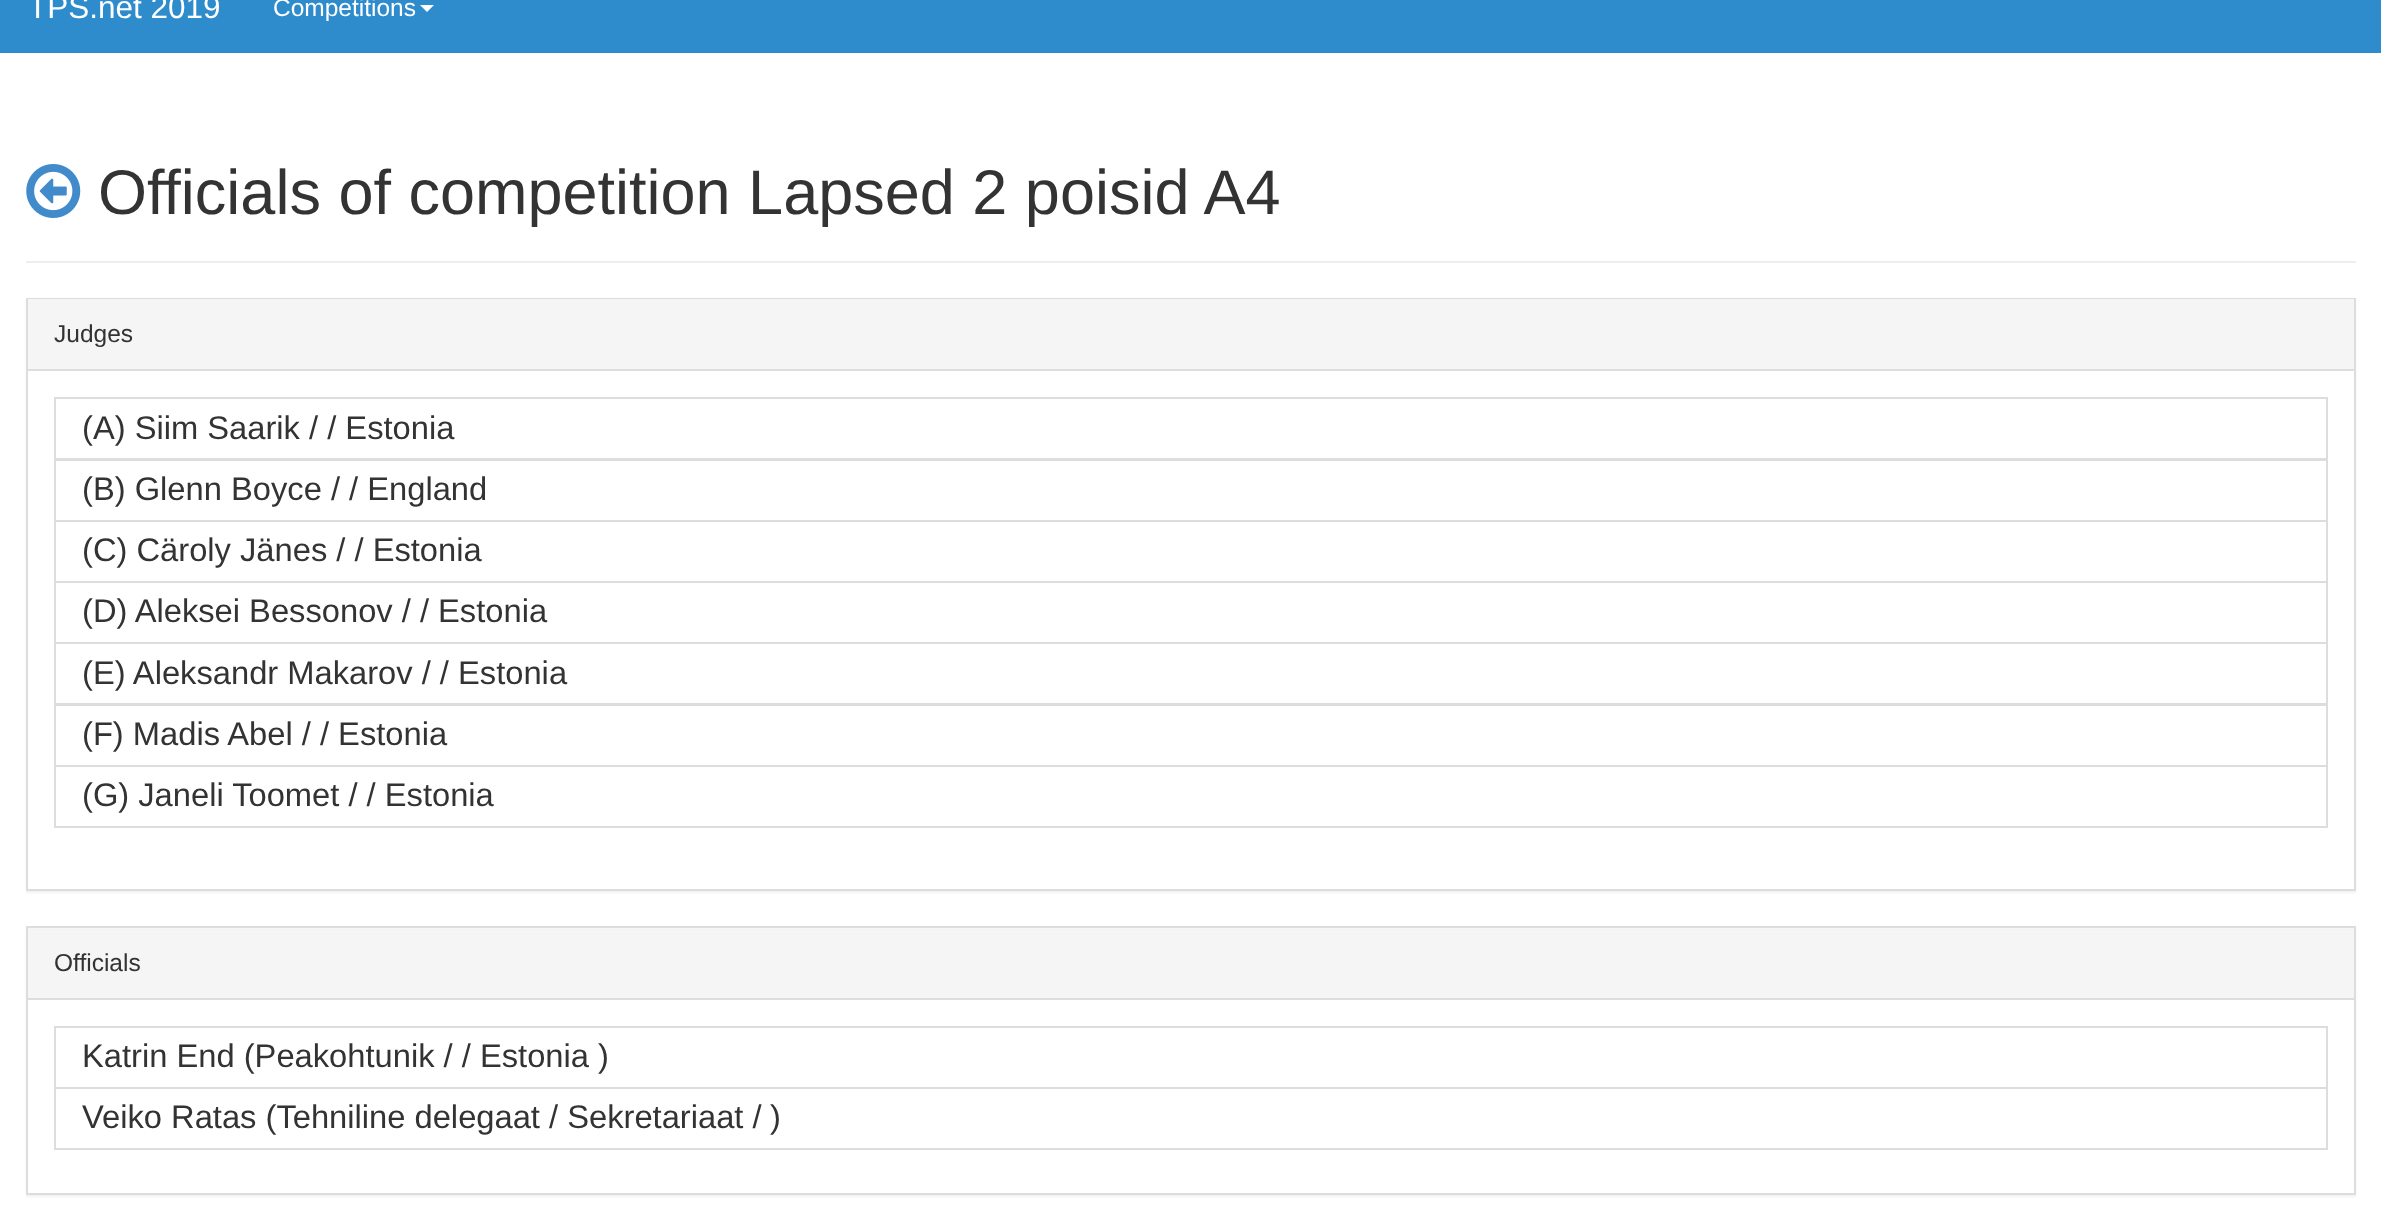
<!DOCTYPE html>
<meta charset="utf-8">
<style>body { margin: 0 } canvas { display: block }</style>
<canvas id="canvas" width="2381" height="1221"></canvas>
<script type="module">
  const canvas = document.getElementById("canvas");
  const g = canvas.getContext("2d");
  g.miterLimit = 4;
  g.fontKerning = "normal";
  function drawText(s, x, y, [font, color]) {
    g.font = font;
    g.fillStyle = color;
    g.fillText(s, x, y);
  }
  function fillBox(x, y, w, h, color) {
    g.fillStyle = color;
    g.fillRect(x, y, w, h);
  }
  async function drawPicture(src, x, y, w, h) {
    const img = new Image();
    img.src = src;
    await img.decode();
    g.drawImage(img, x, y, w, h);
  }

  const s1 = ["31.5px Liberation Sans", "#FFFFFF"];
  const s2 = ["24.5px Liberation Sans", "#FFFFFF"];
  const s3 = ["63px Liberation Sans", "#333333"];
  const s4 = ["24.5px Liberation Sans", "#333333"];
  const s5 = ["32.7px Liberation Sans", "#333333"];

  fillBox(0, 0, 2381, 1221, "#FFFFFF");
  fillBox(0, 0, 2381, 53, "#2E8BCC");
  drawText("TPS.net 2019", 28, 18, s1);
  drawText("Competitions", 273, 16, s2);
  g.beginPath();
  g.moveTo(420, 5);
  g.lineTo(434, 5);
  g.lineTo(427, 12);
  g.closePath();
  g.fill();
  fillBox(26, 261, 2330, 2, "#EEEEEE");
  await drawPicture("pic1.png", 26, 164, 55, 54);
  drawText("Officials of competition Lapsed 2 poisid A4", 98, 214, s3);
  g.fillStyle = "rgba(0, 0, 0, 0.05)";
  g.filter = "blur(1px)";
  g.beginPath();
  g.rect(26, 299, 2330, 594);
  g.fill();
  g.filter = "none";
  fillBox(28, 371, 2326, 518, "#FFFFFF");
  g.strokeStyle = "#DDDDDD";
  g.lineWidth = 2;
  g.strokeRect(27, 299, 2328, 591);
  fillBox(28, 299, 2326, 70, "#F5F5F5");
  fillBox(28, 369, 2326, 2, "#DDDDDD");
  drawText("Judges", 54, 342, s4);
  g.strokeRect(55, 398, 2272, 61);
  drawText("(A) Siim Saarik / / Estonia", 82, 439, s5);
  g.strokeRect(55, 460, 2272, 61);
  drawText("(B) Glenn Boyce / / England", 82, 500, s5);
  g.strokeRect(55, 521, 2272, 61);
  drawText("(C) Cäroly Jänes / / Estonia", 82, 561, s5);
  g.strokeRect(55, 582, 2272, 61);
  drawText("(D) Aleksei Bessonov / / Estonia", 82, 622, s5);
  g.strokeRect(55, 643, 2272, 61);
  drawText("(E) Aleksandr Makarov / / Estonia", 82, 684, s5);
  g.strokeRect(55, 705, 2272, 61);
  drawText("(F) Madis Abel / / Estonia", 82, 745, s5);
  g.strokeRect(55, 766, 2272, 61);
  drawText("(G) Janeli Toomet / / Estonia", 82, 806, s5);
  g.fillStyle = "rgba(0, 0, 0, 0.05)";
  g.filter = "blur(1px)";
  g.beginPath();
  g.rect(26, 928, 2330, 269);
  g.fill();
  g.filter = "none";
  fillBox(28, 1000, 2326, 193, "#FFFFFF");
  g.strokeRect(27, 927, 2328, 267);
  fillBox(28, 930, 2326, 68, "#F5F5F5");
  fillBox(28, 998, 2326, 2, "#DDDDDD");
  drawText("Officials", 54, 971, s4);
  g.strokeRect(55, 1027, 2272, 61);
  drawText("Katrin End (Peakohtunik / / Estonia )", 82, 1067, s5);
  g.strokeRect(55, 1088, 2272, 61);
  drawText("Veiko Ratas (Tehniline delegaat / Sekretariaat /", 82, 1128, s5);
  drawText(")", 770, 1128, s5);
</script>
